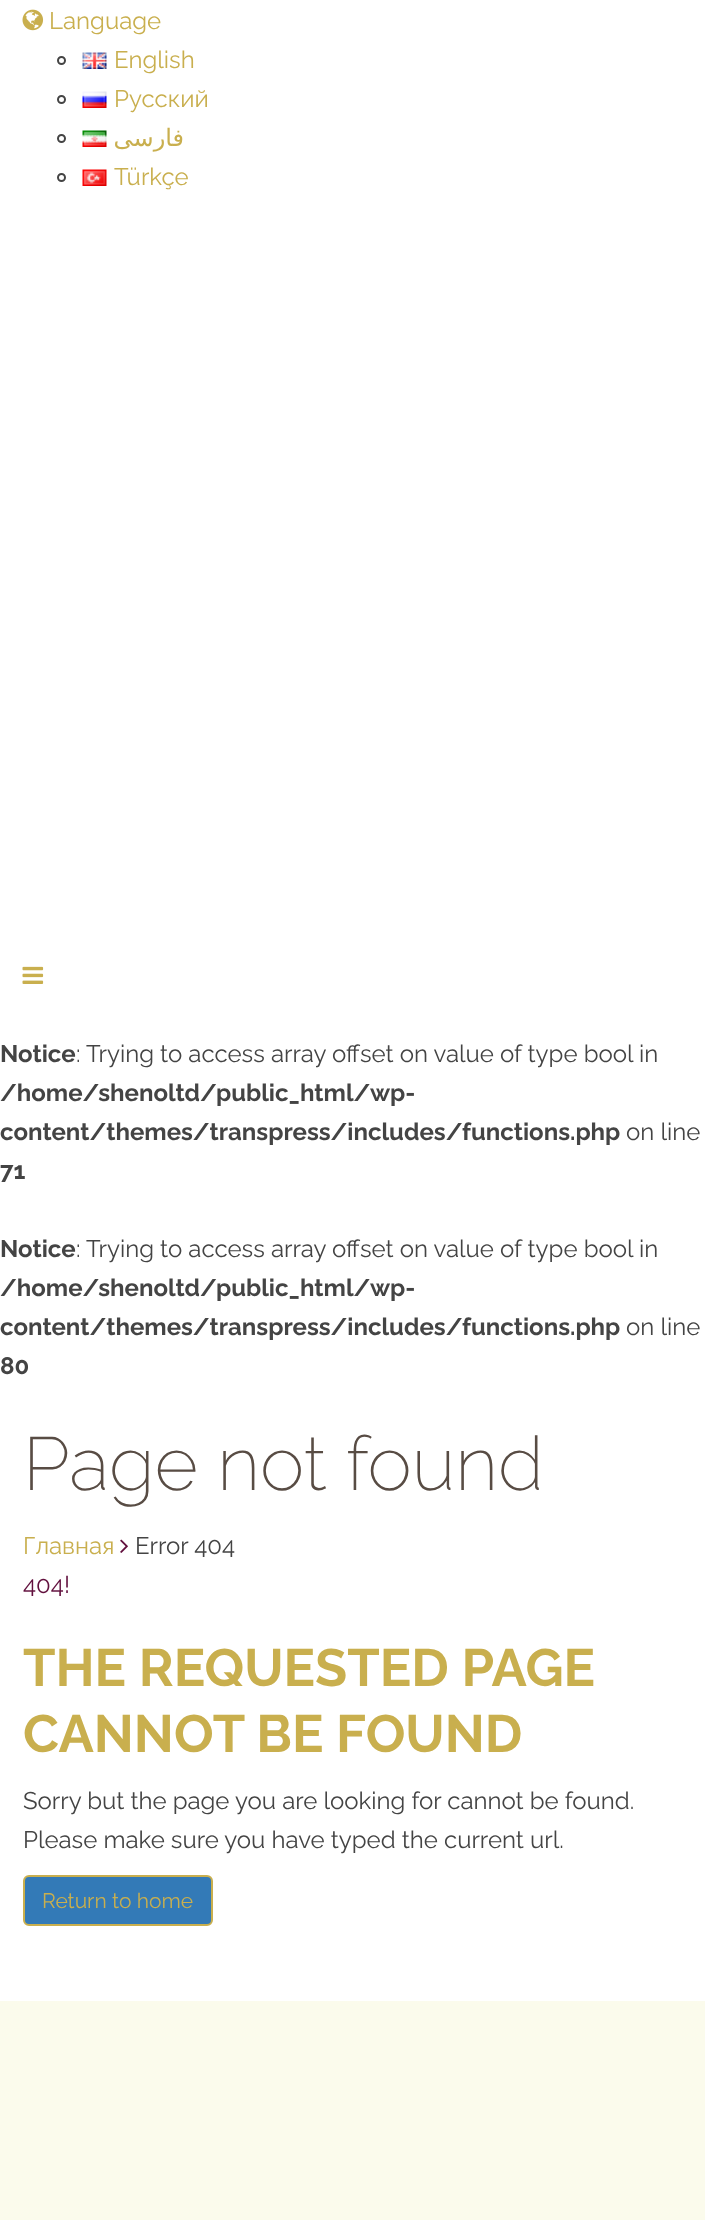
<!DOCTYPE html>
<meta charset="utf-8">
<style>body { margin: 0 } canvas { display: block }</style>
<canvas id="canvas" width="705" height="2220"></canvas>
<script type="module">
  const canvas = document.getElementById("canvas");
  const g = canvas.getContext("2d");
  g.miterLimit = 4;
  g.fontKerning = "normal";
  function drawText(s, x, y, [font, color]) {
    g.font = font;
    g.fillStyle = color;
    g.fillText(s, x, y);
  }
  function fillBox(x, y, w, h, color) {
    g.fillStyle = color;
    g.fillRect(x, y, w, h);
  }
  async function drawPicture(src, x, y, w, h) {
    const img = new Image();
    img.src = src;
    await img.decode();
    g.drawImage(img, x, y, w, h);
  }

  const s1 = ["24px Raleway", "#C9AF4E"];
  const s2 = ["24px DejaVu Sans", "#C9AF4E"];
  const s3 = ["bold 24px Raleway", "#444444"];
  const s4 = ["24px Raleway", "#444444"];
  const s5 = ["200 75px Raleway", "#584C44"];
  const s6 = ["24px Raleway", "#62103E"];
  const s7 = ["bold 52.5px Raleway", "#C9AF4E"];
  const s8 = ["21px Raleway", "#C9AF4E"];

  fillBox(0, 0, 705, 2220, "#FFFFFF");
  await drawPicture("pic1.png", 22, 9, 22, 22);
  drawText("Language", 49, 29, s1);
  g.beginPath();
  g.arc(61.5, 60.5, 3.5, 0, Math.PI * 2);
  g.strokeStyle = "#444444";
  g.lineWidth = 2;
  g.stroke();
  await drawPicture("pic2.png", 82, 52, 25, 17);
  drawText("English", 114, 68, s1);
  g.beginPath();
  g.arc(61.5, 99.5, 3.5, 0, Math.PI * 2);
  g.stroke();
  await drawPicture("pic3.png", 82, 91, 25, 17);
  drawText("Русский", 114, 107, s1);
  g.beginPath();
  g.arc(61.5, 138.5, 3.5, 0, Math.PI * 2);
  g.stroke();
  await drawPicture("pic4.png", 82, 130, 25, 17);
  g.direction = "rtl";
  drawText("فارسی", 184, 146, s2);
  g.beginPath();
  g.arc(61.5, 177.5, 3.5, 0, Math.PI * 2);
  g.stroke();
  await drawPicture("pic5.png", 82, 169, 25, 17);
  g.direction = "ltr";
  drawText("Türkçe", 114, 185, s1);
  await drawPicture("pic6.png", 22, 966, 22, 18);
  drawText("Notice", 0, 1062, s3);
  drawText(":", 76, 1062, s4);
  drawText("Trying to access array offset on value of type bool in", 86, 1062, s4);
  drawText("/home/shenoltd/public_html/wp-", 0, 1101, s3);
  drawText("content/themes/transpress/includes/functions.php", 0, 1140, s3);
  drawText("on line", 626, 1140, s4);
  drawText("71", 0, 1179, s3);
  drawText("Notice", 0, 1257, s3);
  drawText(":", 76, 1257, s4);
  drawText("Trying to access array offset on value of type bool in", 86, 1257, s4);
  drawText("/home/shenoltd/public_html/wp-", 0, 1296, s3);
  drawText("content/themes/transpress/includes/functions.php", 0, 1335, s3);
  drawText("on line", 626, 1335, s4);
  drawText("80", 0, 1374, s3);
  drawText("Page not found", 23, 1490, s5);
  drawText("Главная", 23, 1554, s1);
  await drawPicture("pic7.png", 120, 1539, 8, 14);
  drawText("Error 404", 135, 1554, s4);
  drawText("404!", 23, 1593, s6);
  drawText("THE REQUESTED PAGE", 23, 1686, s7);
  drawText("CANNOT BE FOUND", 23, 1752, s7);
  drawText("Sorry but the page you are looking for cannot be found.", 23, 1809, s4);
  drawText("Please make sure you have typed the current url.", 23, 1848, s4);
  g.fillStyle = "#337AB7";
  g.beginPath();
  g.roundRect(24, 1876, 188, 49, 5);
  g.fill();
  g.strokeStyle = "#C9AF4E";
  g.stroke();
  drawText("Return to home", 42, 1908, s8);
  fillBox(0, 2001, 705, 219, "#FBFBEC");
</script>
